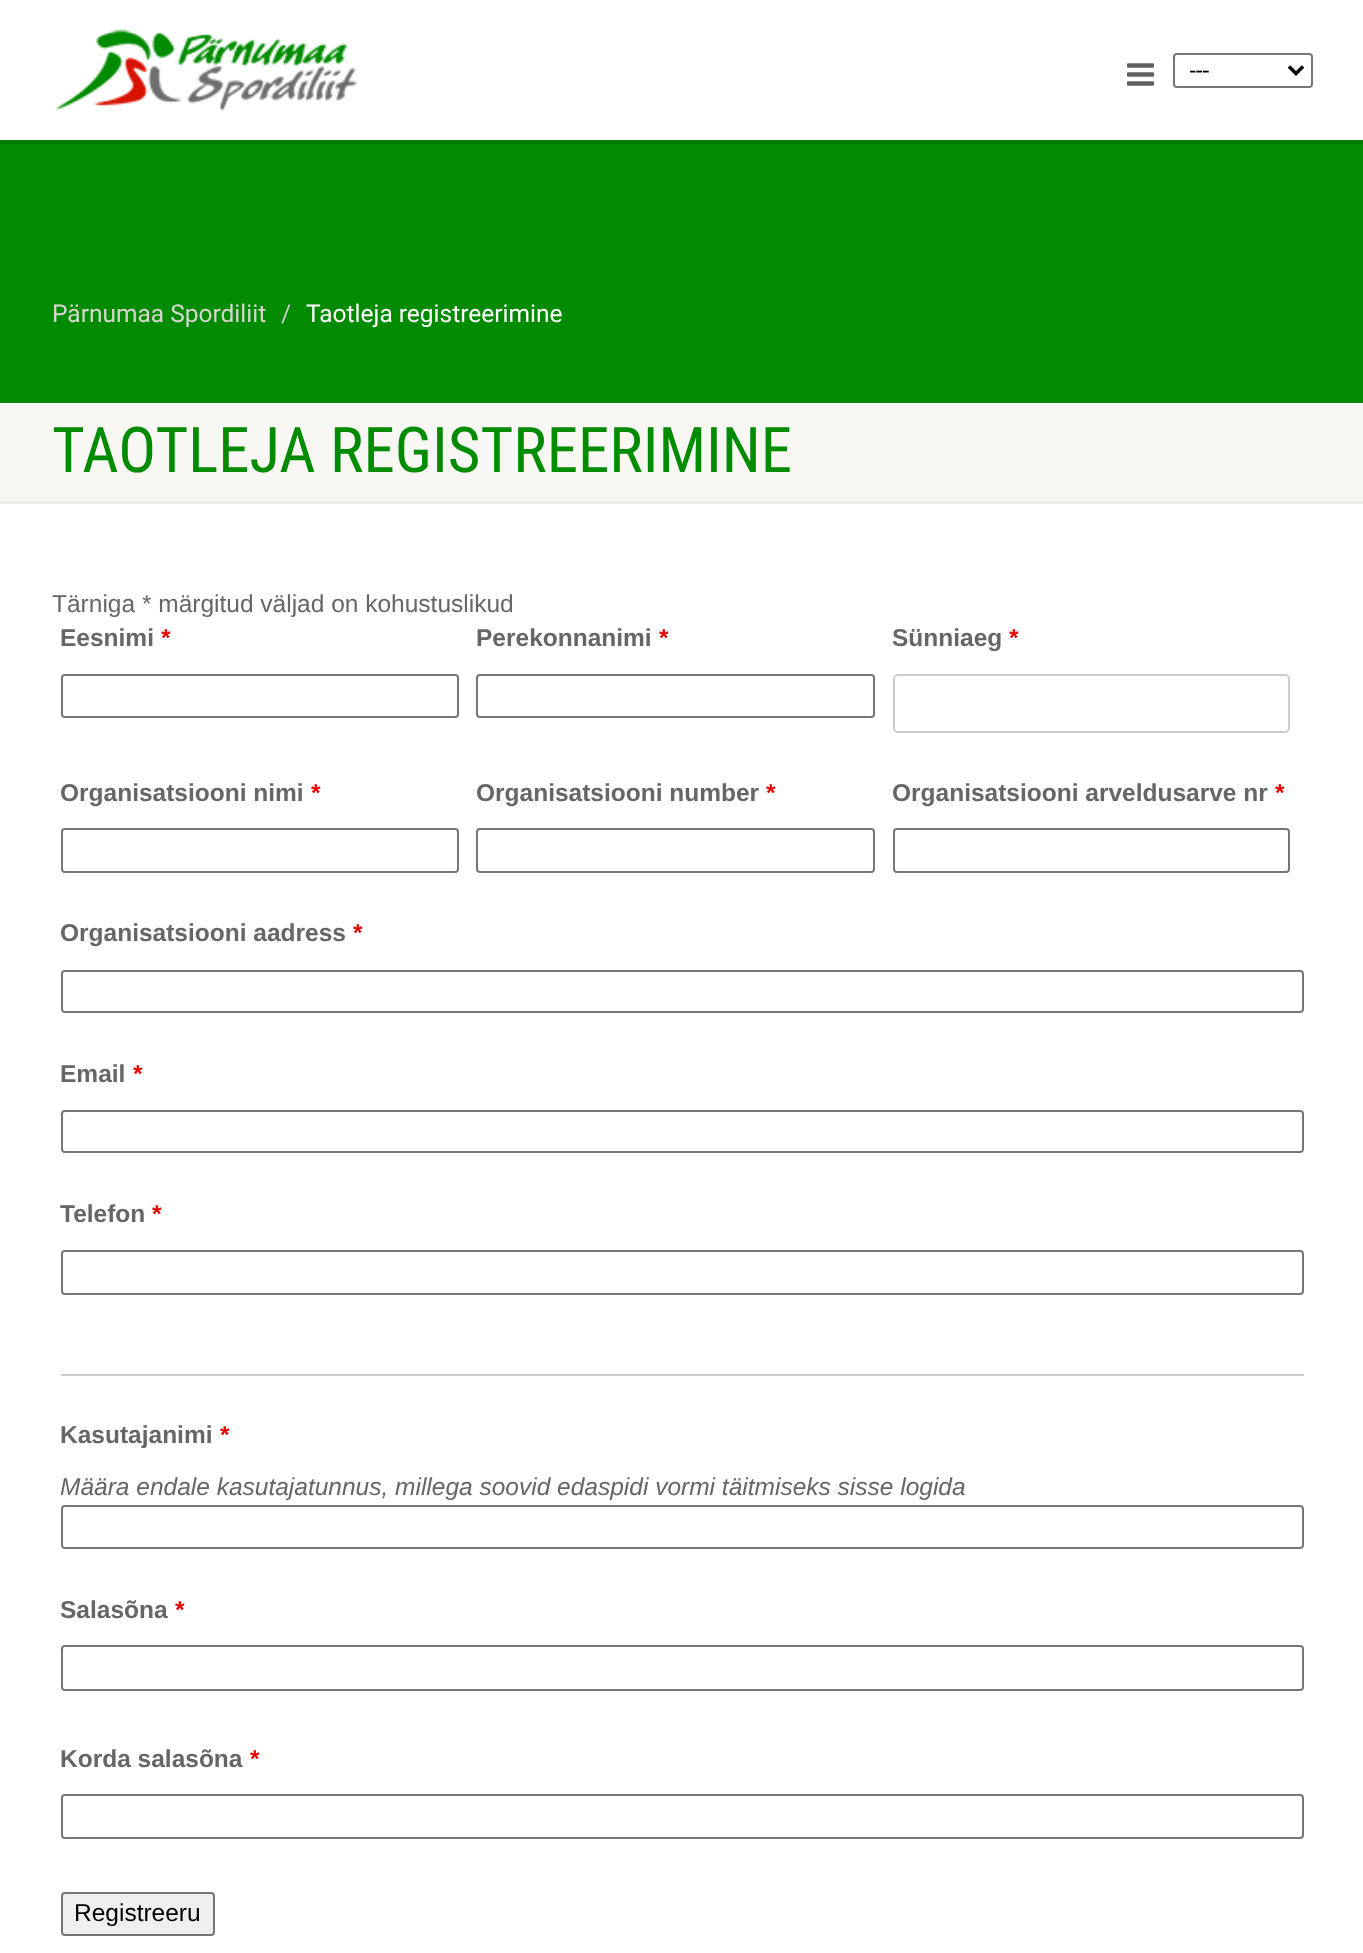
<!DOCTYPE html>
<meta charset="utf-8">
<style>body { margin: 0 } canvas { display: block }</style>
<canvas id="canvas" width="1363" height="1953"></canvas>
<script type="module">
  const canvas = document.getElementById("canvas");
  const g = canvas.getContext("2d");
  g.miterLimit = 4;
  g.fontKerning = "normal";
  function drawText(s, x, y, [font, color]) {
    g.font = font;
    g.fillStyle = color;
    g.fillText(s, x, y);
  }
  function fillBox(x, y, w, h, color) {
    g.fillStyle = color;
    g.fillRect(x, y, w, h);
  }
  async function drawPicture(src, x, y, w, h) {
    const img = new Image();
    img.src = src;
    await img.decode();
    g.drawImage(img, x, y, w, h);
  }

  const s1 = ["24.5px Roboto", "#000000"];
  const s2 = ["24.5px Roboto", "#D8D6D1"];
  const s3 = ["24.5px Roboto", "#CCCCCC"];
  const s4 = ["24.5px Roboto", "#FFFFFF"];
  const s5 = ["63px Roboto Condensed", "#008B00"];
  const s6 = ["24.5px Liberation Sans", "#666666"];
  const s7 = ["bold 24.5px Liberation Sans", "#666666"];
  const s8 = ["bold 24.5px Liberation Sans", "#E80000"];
  const s9 = ["italic 24.5px Liberation Sans", "#666666"];
  const s10 = ["24.5px Liberation Sans", "#000000"];

  fillBox(0, 0, 1363, 1953, "#FFFFFF");
  fillBox(0, 140, 1363, 4, "#007D00");
  await drawPicture("pic1.png", 55, 29, 303, 82);
  await drawPicture("pic2.png", 1127, 63, 27, 23);
  g.beginPath();
  g.roundRect(1174, 54, 138, 33, 3);
  g.strokeStyle = "#767676";
  g.lineWidth = 2;
  g.stroke();
  g.beginPath();
  g.moveTo(1289, 66.5);
  g.lineTo(1296, 73.5);
  g.lineTo(1303, 66.5);
  g.strokeStyle = "#000000";
  g.lineWidth = 3.5;
  g.stroke();
  g.save();
  g.beginPath();
  g.rect(1190, 54, 93, 32);
  g.clip();
  drawText("---", 1189, 79, s1);
  g.restore();
  fillBox(0, 144, 1363, 259, "#008B00");
  drawText("Pärnumaa Spordiliit", 52, 322, s2);
  drawText("/", 281, 322, s3);
  drawText("Taotleja registreerimine", 306, 322, s4);
  fillBox(0, 501, 1363, 3, "#EDEDED");
  fillBox(0, 403, 1363, 98, "#F8F7F3");
  drawText("TAOTLEJA REGISTREERIMINE", 52, 472, s5);
  drawText("Tärniga * märgitud väljad on kohustuslikud", 52, 612, s6);
  drawText("Eesnimi", 60, 646, s7);
  drawText("*", 161, 646, s8);
  g.beginPath();
  g.roundRect(62, 675, 396, 42, 3);
  g.strokeStyle = "#767676";
  g.lineWidth = 2;
  g.stroke();
  drawText("Perekonnanimi", 476, 646, s7);
  drawText("*", 659, 646, s8);
  g.beginPath();
  g.roundRect(477, 675, 397, 42, 3);
  g.stroke();
  drawText("Sünniaeg", 892, 646, s7);
  drawText("*", 1009, 646, s8);
  g.beginPath();
  g.roundRect(894, 675, 395, 57, 4);
  g.strokeStyle = "#CCCCCC";
  g.stroke();
  drawText("Organisatsiooni nimi", 60, 801, s7);
  drawText("*", 311, 801, s8);
  g.beginPath();
  g.roundRect(62, 829, 396, 43, 3);
  g.strokeStyle = "#767676";
  g.stroke();
  drawText("Organisatsiooni number", 476, 801, s7);
  drawText("*", 766, 801, s8);
  g.beginPath();
  g.roundRect(477, 829, 397, 43, 3);
  g.stroke();
  drawText("Organisatsiooni arveldusarve nr", 892, 801, s7);
  drawText("*", 1275, 801, s8);
  g.beginPath();
  g.roundRect(894, 829, 395, 43, 3);
  g.stroke();
  drawText("Organisatsiooni aadress", 60, 941, s7);
  drawText("*", 353, 941, s8);
  g.beginPath();
  g.roundRect(62, 971, 1241, 41, 3);
  g.stroke();
  drawText("Email", 60, 1082, s7);
  drawText("*", 133, 1082, s8);
  g.beginPath();
  g.roundRect(62, 1111, 1241, 41, 3);
  g.stroke();
  drawText("Telefon", 60, 1222, s7);
  drawText("*", 152, 1222, s8);
  g.beginPath();
  g.roundRect(62, 1251, 1241, 43, 3);
  g.stroke();
  fillBox(61, 1374, 1243, 2, "#CCCCCC");
  drawText("Kasutajanimi", 60, 1443, s7);
  drawText("*", 220, 1443, s8);
  drawText("Määra endale kasutajatunnus, millega soovid edaspidi vormi täitmiseks sisse logida", 60, 1495, s9);
  g.beginPath();
  g.roundRect(62, 1506, 1241, 42, 3);
  g.stroke();
  drawText("Salasõna", 60, 1618, s7);
  drawText("*", 175, 1618, s8);
  g.beginPath();
  g.roundRect(62, 1646, 1241, 44, 3);
  g.stroke();
  drawText("Korda salasõna", 60, 1767, s7);
  drawText("*", 250, 1767, s8);
  g.beginPath();
  g.roundRect(62, 1795, 1241, 43, 3);
  g.stroke();
  g.fillStyle = "#EFEFEF";
  g.beginPath();
  g.roundRect(62, 1893, 152, 42, 3);
  g.fill();
  g.stroke();
  drawText("Registreeru", 74, 1921, s10);
</script>
